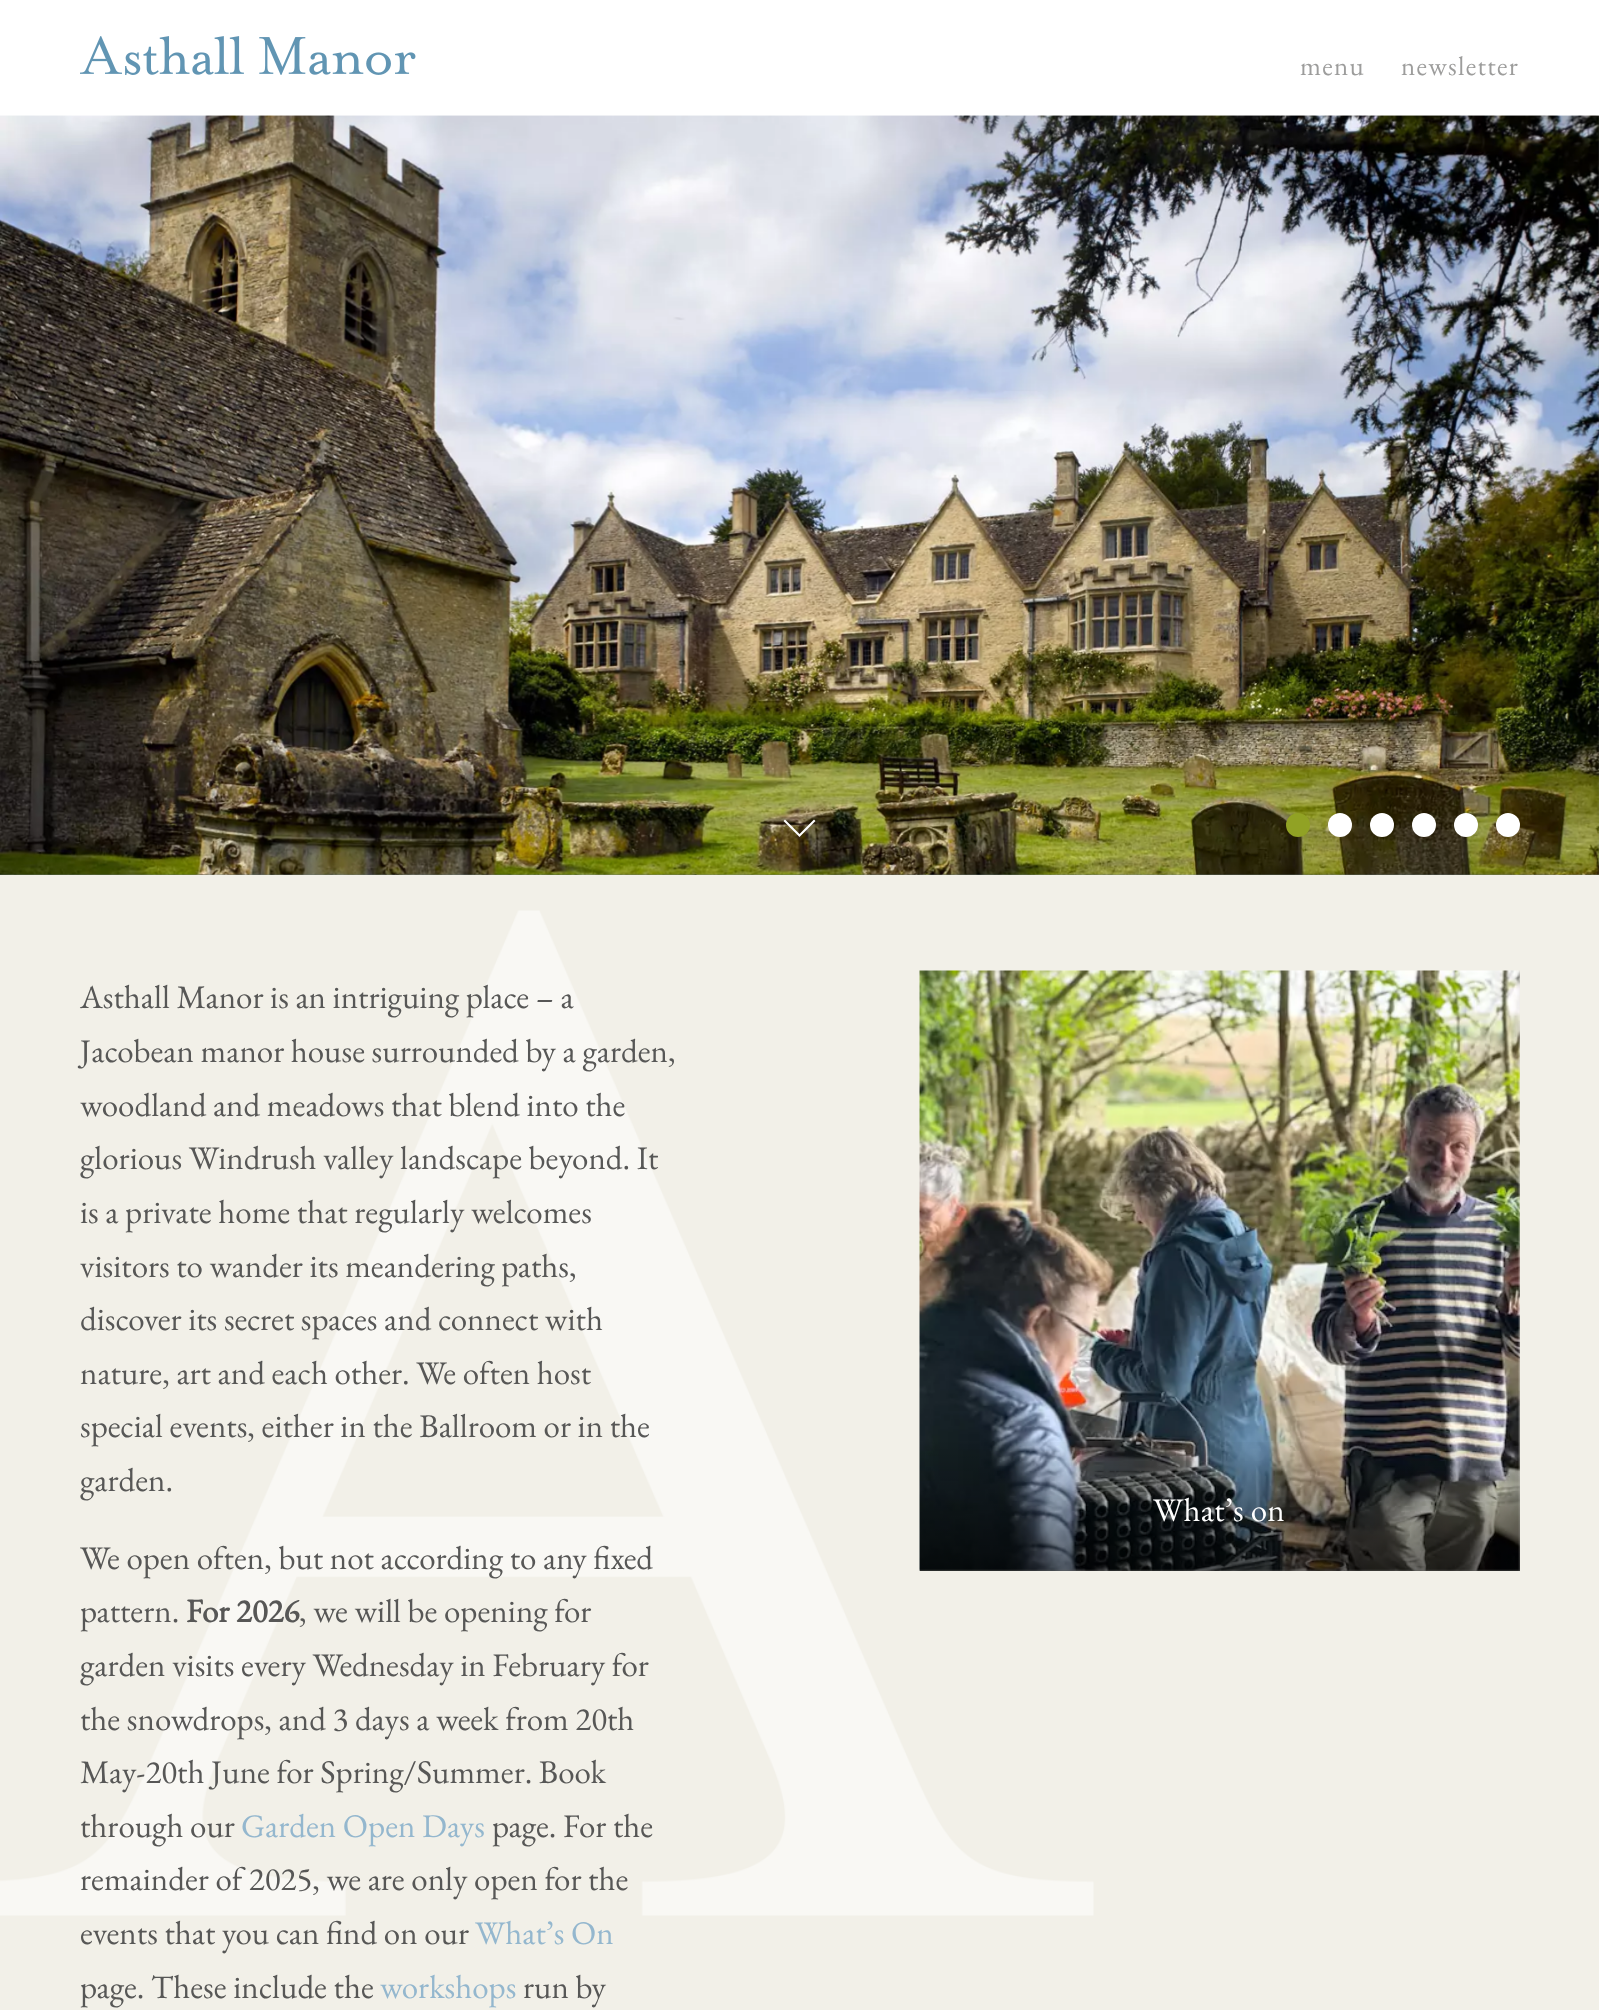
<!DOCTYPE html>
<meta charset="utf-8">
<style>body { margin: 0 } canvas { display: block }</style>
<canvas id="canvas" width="1599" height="2010"></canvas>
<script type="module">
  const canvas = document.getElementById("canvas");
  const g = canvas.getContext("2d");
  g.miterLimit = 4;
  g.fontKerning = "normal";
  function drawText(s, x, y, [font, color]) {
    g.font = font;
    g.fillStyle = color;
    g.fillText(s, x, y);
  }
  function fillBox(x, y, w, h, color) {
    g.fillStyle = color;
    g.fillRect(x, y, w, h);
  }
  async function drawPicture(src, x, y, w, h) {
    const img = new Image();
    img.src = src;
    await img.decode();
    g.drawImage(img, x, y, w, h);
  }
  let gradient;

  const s1 = ["27px EB Garamond", "#9D9D9C"];
  const s2 = ["33px EB Garamond", "#575756"];
  const s3 = ["bold 33px EB Garamond", "#575756"];
  const s4 = ["33px EB Garamond", "#94B7CE"];
  const s5 = ["33px EB Garamond", "#FFFFFF"];

  fillBox(0, 0, 1599, 2010, "#FFFFFF");
  await drawPicture("pic1.png", 80, 36, 336, 39);
  g.letterSpacing = "1.25px";
  drawText("menu", 1300, 75, s1);
  drawText("newsletter", 1401, 75, s1);
  fillBox(0, 116, 1599, 759, "#6E7C7C");
  await drawPicture("pic2.png", 0, 115, 1599, 760);
  g.fillStyle = "#FFFFFF";
  g.beginPath();
  g.moveTo(815.5, 821);
  g.lineTo(814, 819.5);
  g.lineTo(799.5, 834);
  g.lineTo(785, 819.5);
  g.lineTo(783.5, 821);
  g.lineTo(799.5, 837);
  g.closePath();
  g.fill();
  g.fillStyle = "#91A224";
  g.beginPath();
  g.arc(1298, 825, 12, 0, Math.PI * 2);
  g.fill();
  g.fillStyle = "#FFFFFF";
  g.beginPath();
  g.arc(1340, 825, 12, 0, Math.PI * 2);
  g.fill();
  g.beginPath();
  g.arc(1382, 825, 12, 0, Math.PI * 2);
  g.fill();
  g.beginPath();
  g.arc(1424, 825, 12, 0, Math.PI * 2);
  g.fill();
  g.beginPath();
  g.arc(1466, 825, 12, 0, Math.PI * 2);
  g.fill();
  g.beginPath();
  g.arc(1508, 825, 12, 0, Math.PI * 2);
  g.fill();
  fillBox(0, 875, 1599, 1135, "#F2F0E8");
  await drawPicture("pic3.png", 0, 910, 1094, 1006);
  g.letterSpacing = "0px";
  drawText("Asthall Manor is an intriguing place – a", 80, 1008, s2);
  drawText("Jacobean manor house surrounded by a garden,", 80, 1062, s2);
  drawText("woodland and meadows that blend into the", 80, 1116, s2);
  drawText("glorious Windrush valley landscape beyond. It", 80, 1169, s2);
  drawText("is a private home that regularly welcomes", 80, 1223, s2);
  drawText("visitors to wander its meandering paths,", 80, 1277, s2);
  drawText("discover its secret spaces and connect with", 80, 1330, s2);
  drawText("nature, art and each other. We often host", 80, 1384, s2);
  drawText("special events, either in the Ballroom or in the", 80, 1437, s2);
  drawText("garden.", 80, 1491, s2);
  drawText("We open often, but not according to any fixed", 80, 1569, s2);
  drawText("pattern.", 80, 1622, s2);
  drawText("For 2026", 186, 1622, s3);
  drawText(", we will be opening for", 299, 1622, s2);
  drawText("garden visits every Wednesday in February for", 80, 1676, s2);
  drawText("the snowdrops, and 3 days a week from 20th", 80, 1730, s2);
  drawText("May-20th June for Spring/Summer. Book", 80, 1783, s2);
  drawText("through our", 80, 1837, s2);
  drawText("Garden Open Days", 241, 1837, s4);
  drawText("page. For the", 492, 1837, s2);
  drawText("remainder of 2025, we are only open for the", 80, 1890, s2);
  drawText("events that you can find on our", 80, 1944, s2);
  drawText("What’s On", 475, 1944, s4);
  drawText("page. These include the", 80, 1998, s2);
  drawText("workshops", 380, 1998, s4);
  drawText("run by", 523, 1998, s2);
  await drawPicture("pic4.png", 919, 970, 601, 601);
  gradient = g.createLinearGradient(1220, 1571, 1220, 1437);
  gradient.addColorStop(0, "rgba(0, 0, 0, 0.6)");
  gradient.addColorStop(1, "rgba(0, 0, 0, 0)");
  g.fillStyle = gradient;
  g.fillRect(920, 1442, 600, 129);
  g.letterSpacing = "0.25px";
  drawText("What’s on", 1153, 1521, s5);
</script>
